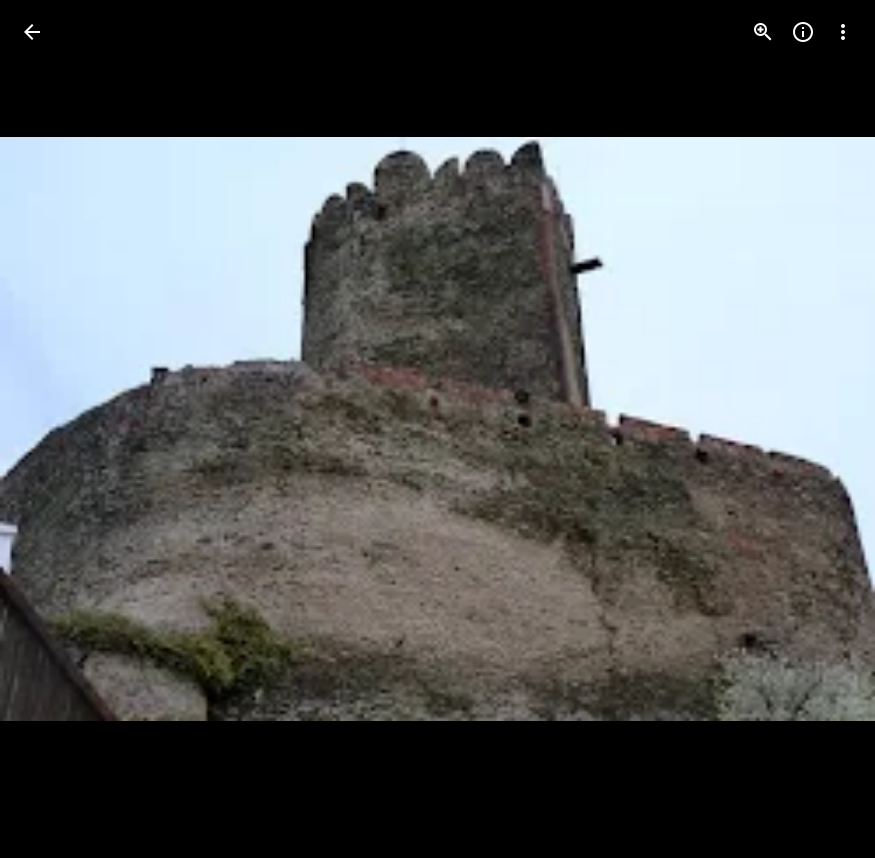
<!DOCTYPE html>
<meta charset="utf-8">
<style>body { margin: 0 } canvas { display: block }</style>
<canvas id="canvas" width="875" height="858"></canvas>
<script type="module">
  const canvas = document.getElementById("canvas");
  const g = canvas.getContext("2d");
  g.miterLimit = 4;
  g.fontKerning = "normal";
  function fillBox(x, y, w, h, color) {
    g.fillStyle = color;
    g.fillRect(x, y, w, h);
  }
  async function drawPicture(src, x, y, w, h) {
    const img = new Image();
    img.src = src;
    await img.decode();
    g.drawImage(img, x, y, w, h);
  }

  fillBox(0, 0, 875, 858, "#000000");
  await drawPicture("pic1.png", 24, 24, 16, 16);
  await drawPicture("pic2.png", 754, 23, 18, 18);
  await drawPicture("pic3.png", 793, 22, 20, 20);
  await drawPicture("pic4.png", 841, 24, 4, 16);
  await drawPicture("pic5.png", 0, 137, 875, 584);
</script>
